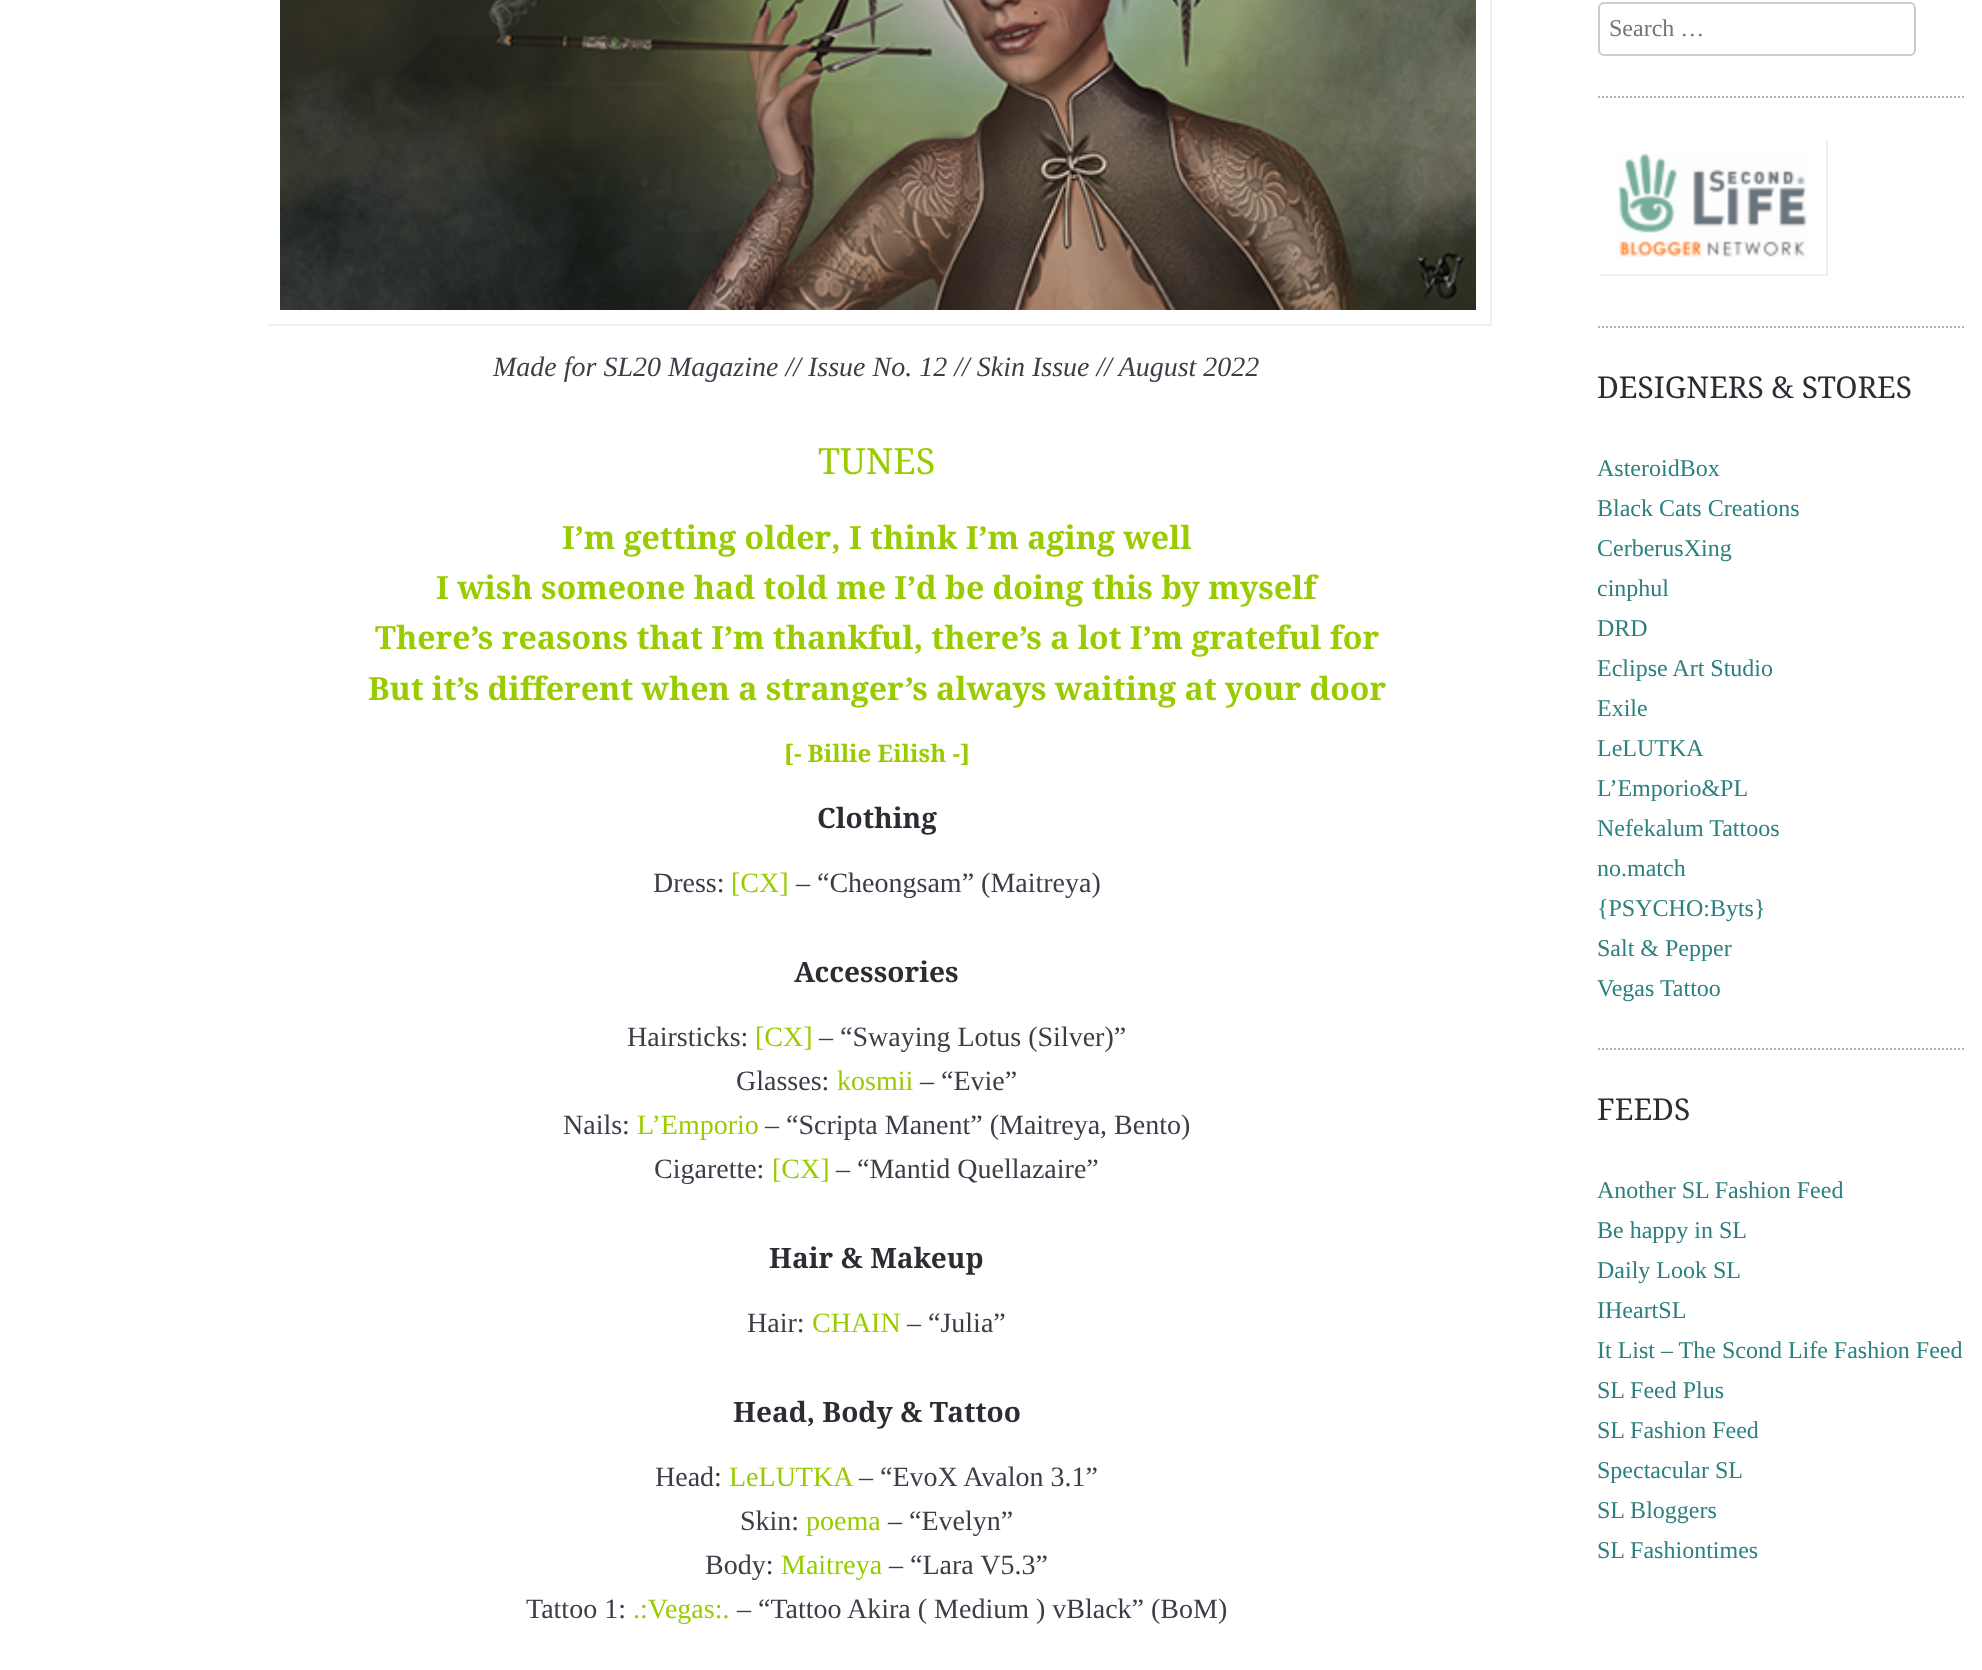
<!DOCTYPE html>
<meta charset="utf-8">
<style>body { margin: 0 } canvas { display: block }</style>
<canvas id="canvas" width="1982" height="1670"></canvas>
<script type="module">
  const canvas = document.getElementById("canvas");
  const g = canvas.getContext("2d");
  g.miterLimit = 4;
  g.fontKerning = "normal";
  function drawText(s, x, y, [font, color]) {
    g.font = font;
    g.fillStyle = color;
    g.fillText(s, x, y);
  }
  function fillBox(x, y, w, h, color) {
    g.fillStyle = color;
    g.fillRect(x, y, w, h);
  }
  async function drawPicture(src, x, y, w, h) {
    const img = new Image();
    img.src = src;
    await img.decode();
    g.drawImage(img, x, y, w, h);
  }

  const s1 = ["italic 28px Liberation Serif", "#3C3D47"];
  const s2 = ["36px Droid Serif", "#99CC00"];
  const s3 = ["bold 32px Droid Serif", "#99CC00"];
  const s4 = ["bold 24px Droid Serif", "#99CC00"];
  const s5 = ["bold 28px Droid Serif", "#2C2C33"];
  const s6 = ["28px Liberation Serif", "#3C3D47"];
  const s7 = ["28px Liberation Serif", "#99CC00"];
  const s8 = ["24px Liberation Serif", "#757575"];
  const s9 = ["30px Droid Serif", "#2C2C33"];
  const s10 = ["24px Liberation Serif", "#2C807F"];

  fillBox(0, 0, 1982, 1670, "#FFFFFF");
  g.fillStyle = "#F2EFF4";
  g.beginPath();
  g.moveTo(268, 324);
  g.lineTo(268, 326);
  g.lineTo(1492, 326);
  g.lineTo(1492, -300);
  g.lineTo(1490, -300);
  g.lineTo(1490, 324);
  g.closePath();
  g.fill();
  await drawPicture("pic1.png", 280, 0, 1196, 310);
  drawText("Made for SL20 Magazine // Issue No. 12 // Skin Issue // August 2022", 493, 376, s1);
  drawText("TUNES", 818, 474, s2);
  drawText("I’m getting older, I think I’m aging well", 562, 549, s3);
  drawText("I wish someone had told me I’d be doing this by myself", 436, 599, s3);
  drawText("There’s reasons that I’m thankful, there’s a lot I’m grateful for", 375, 649, s3);
  drawText("But it’s different when a stranger’s always waiting at your door", 368, 700, s3);
  drawText("[- Billie Eilish -]", 784, 762, s4);
  drawText("Clothing", 817, 828, s5);
  drawText("Dress:", 653, 892, s6);
  drawText("[CX]", 731, 892, s7);
  drawText("– “Cheongsam” (Maitreya)", 796, 892, s6);
  drawText("Accessories", 794, 982, s5);
  drawText("Hairsticks:", 627, 1046, s6);
  drawText("[CX]", 755, 1046, s7);
  drawText("– “Swaying Lotus (Silver)”", 819, 1046, s6);
  drawText("Glasses:", 736, 1090, s6);
  drawText("kosmii", 837, 1090, s7);
  drawText("– “Evie”", 920, 1090, s6);
  drawText("Nails:", 563, 1134, s6);
  drawText("L’Emporio", 637, 1134, s7);
  drawText("– “Scripta Manent” (Maitreya, Bento)", 765, 1134, s6);
  drawText("Cigarette:", 654, 1178, s6);
  drawText("[CX]", 772, 1178, s7);
  drawText("– “Mantid Quellazaire”", 836, 1178, s6);
  drawText("Hair & Makeup", 769, 1268, s5);
  drawText("Hair:", 747, 1332, s6);
  drawText("CHAIN", 812, 1332, s7);
  drawText("– “Julia”", 907, 1332, s6);
  drawText("Head, Body & Tattoo", 733, 1422, s5);
  drawText("Head:", 655, 1486, s6);
  drawText("LeLUTKA", 729, 1486, s7);
  drawText("– “EvoX Avalon 3.1”", 859, 1486, s6);
  drawText("Skin:", 740, 1530, s6);
  drawText("poema", 806, 1530, s7);
  drawText("– “Evelyn”", 888, 1530, s6);
  drawText("Body:", 705, 1574, s6);
  drawText("Maitreya", 781, 1574, s7);
  drawText("– “Lara V5.3”", 889, 1574, s6);
  drawText("Tattoo 1:", 526, 1618, s6);
  drawText(".:Vegas:.", 633, 1618, s7);
  drawText("– “Tattoo Akira ( Medium ) vBlack” (BoM)", 737, 1618, s6);
  g.beginPath();
  g.roundRect(1599, 3, 316, 52, 5);
  g.strokeStyle = "#CCCCCC";
  g.lineWidth = 2;
  g.stroke();
  drawText("Search …", 1609, 36, s8);
  g.beginPath();
  g.moveTo(1598, 97);
  g.lineTo(1966, 97);
  g.strokeStyle = "#B3B3B3";
  g.setLineDash([2, 2]);
  g.stroke();
  g.fillStyle = "#F2EFF4";
  g.beginPath();
  g.moveTo(1600, 274);
  g.lineTo(1600, 276);
  g.lineTo(1828, 276);
  g.lineTo(1828, 140);
  g.lineTo(1826, 140);
  g.lineTo(1826, 274);
  g.closePath();
  g.fill();
  await drawPicture("pic2.png", 1617, 153, 190, 104);
  g.beginPath();
  g.moveTo(1598, 327);
  g.lineTo(1966, 327);
  g.stroke();
  drawText("DESIGNERS & STORES", 1597, 398, s9);
  drawText("AsteroidBox", 1597, 476, s10);
  drawText("Black Cats Creations", 1597, 516, s10);
  drawText("CerberusXing", 1597, 556, s10);
  drawText("cinphul", 1597, 596, s10);
  drawText("DRD", 1597, 636, s10);
  drawText("Eclipse Art Studio", 1597, 676, s10);
  drawText("Exile", 1597, 716, s10);
  drawText("LeLUTKA", 1597, 756, s10);
  drawText("L’Emporio&PL", 1597, 796, s10);
  drawText("Nefekalum Tattoos", 1597, 836, s10);
  drawText("no.match", 1597, 876, s10);
  drawText("{PSYCHO:Byts}", 1597, 916, s10);
  drawText("Salt & Pepper", 1597, 956, s10);
  drawText("Vegas Tattoo", 1597, 996, s10);
  g.beginPath();
  g.moveTo(1598, 1049);
  g.lineTo(1966, 1049);
  g.stroke();
  drawText("FEEDS", 1597, 1120, s9);
  drawText("Another SL Fashion Feed", 1597, 1198, s10);
  drawText("Be happy in SL", 1597, 1238, s10);
  drawText("Daily Look SL", 1597, 1278, s10);
  drawText("IHeartSL", 1597, 1318, s10);
  drawText("It List – The Scond Life Fashion Feed", 1597, 1358, s10);
  drawText("SL Feed Plus", 1597, 1398, s10);
  drawText("SL Fashion Feed", 1597, 1438, s10);
  drawText("Spectacular SL", 1597, 1478, s10);
  drawText("SL Bloggers", 1597, 1518, s10);
  drawText("SL Fashiontimes", 1597, 1558, s10);
</script>
